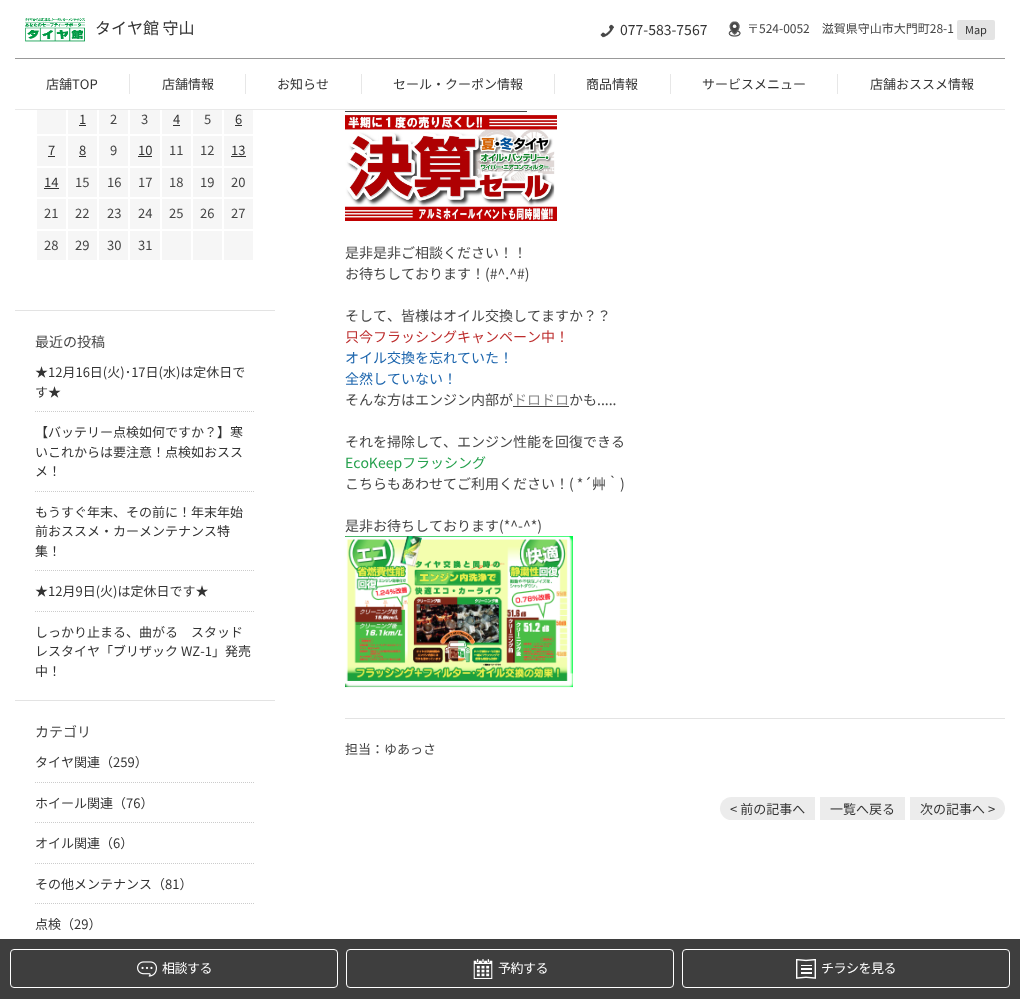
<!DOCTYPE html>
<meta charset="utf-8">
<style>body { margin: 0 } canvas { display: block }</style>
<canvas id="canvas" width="1020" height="999"></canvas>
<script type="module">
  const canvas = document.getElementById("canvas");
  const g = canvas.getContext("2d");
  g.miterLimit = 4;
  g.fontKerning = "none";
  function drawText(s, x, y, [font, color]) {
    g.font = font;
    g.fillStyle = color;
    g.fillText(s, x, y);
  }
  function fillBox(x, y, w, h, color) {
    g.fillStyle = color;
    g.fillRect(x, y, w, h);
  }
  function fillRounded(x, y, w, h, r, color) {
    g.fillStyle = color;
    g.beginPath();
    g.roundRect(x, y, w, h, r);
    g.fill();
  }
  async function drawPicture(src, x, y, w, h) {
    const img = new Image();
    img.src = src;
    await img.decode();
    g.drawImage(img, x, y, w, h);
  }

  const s1 = ["16px Noto Sans JP", "#333333"];
  const s2 = ["14px Noto Sans JP", "#333333"];
  const s3 = ["12px Noto Sans JP", "#454545"];
  const s4 = ["11px Noto Sans JP", "#333333"];
  const s5 = ["13px Noto Sans JP", "#333333"];
  const s6 = ["13px Noto Sans JP", "#454545"];
  const s7 = ["14px Noto Sans JP", "#454545"];
  const s8 = ["14px Noto Sans JP", "#BD2D2D"];
  const s9 = ["14px Noto Sans JP", "#1C65AD"];
  const s10 = ["14px Noto Sans JP", "#888888"];
  const s11 = ["14px Noto Sans JP", "#26A14E"];
  const s12 = ["13px Noto Sans JP", "#FFFFFF"];

  fillBox(0, 0, 1020, 999, "#FFFFFF");
  fillBox(15, 58, 990, 1, "#999999");
  await drawPicture("pic1.png", 25, 18, 60, 24);
  drawText("タイヤ館 守山", 95, 34, s1);
  await drawPicture("pic2.png", 600, 24, 14, 14);
  drawText("077-583-7567", 620, 35, s2);
  await drawPicture("pic3.png", 728, 21, 13, 16);
  drawText("〒524-0052　滋賀県守山市大門町28-1", 747, 33, s3);
  fillRounded(957, 20, 38, 20, 2, "#E4E4E4");
  drawText("Map", 965, 34, s4);
  fillBox(15, 109, 990, 1, "#E9E9E9");
  drawText("店舗TOP", 46, 89, s5);
  fillBox(129, 74, 1, 20, "#E7E7E7");
  drawText("店舗情報", 162, 89, s5);
  fillBox(245, 74, 1, 20, "#E7E7E7");
  drawText("お知らせ", 277, 89, s5);
  fillBox(361, 74, 1, 20, "#E7E7E7");
  drawText("セール・クーポン情報", 393, 89, s5);
  fillBox(554, 74, 1, 20, "#E7E7E7");
  drawText("商品情報", 586, 89, s5);
  fillBox(670, 74, 1, 20, "#E7E7E7");
  drawText("サービスメニュー", 702, 89, s5);
  fillBox(837, 74, 1, 20, "#E7E7E7");
  drawText("店舗おススメ情報", 870, 89, s5);
  fillBox(15, 310, 260, 1, "#E3E3E3");
  fillBox(37, 110, 29, 24, "#F6F6F6");
  fillBox(68, 110, 29, 24, "#F6F6F6");
  drawText("1", 79, 124, s5);
  fillBox(79, 125, 7, 1, "#333333");
  fillBox(99, 110, 29, 24, "#F6F6F6");
  drawText("2", 110, 124, s6);
  fillBox(130, 110, 30, 24, "#F6F6F6");
  drawText("3", 141, 124, s6);
  fillBox(162, 110, 29, 24, "#F6F6F6");
  drawText("4", 173, 124, s5);
  fillBox(173, 125, 7, 1, "#333333");
  fillBox(193, 110, 29, 24, "#F6F6F6");
  drawText("5", 204, 124, s6);
  fillBox(224, 110, 29, 24, "#F6F6F6");
  drawText("6", 235, 124, s5);
  fillBox(235, 125, 7, 1, "#333333");
  fillBox(37, 136, 29, 30, "#F6F6F6");
  drawText("7", 48, 155, s5);
  fillBox(48, 156, 7, 1, "#333333");
  fillBox(68, 136, 29, 30, "#F6F6F6");
  drawText("8", 79, 155, s5);
  fillBox(79, 156, 7, 1, "#333333");
  fillBox(99, 136, 29, 30, "#F6F6F6");
  drawText("9", 110, 155, s6);
  fillBox(130, 136, 30, 30, "#F6F6F6");
  drawText("10", 138, 155, s5);
  fillBox(138, 156, 14, 1, "#333333");
  fillBox(162, 136, 29, 30, "#F6F6F6");
  drawText("11", 169, 155, s6);
  fillBox(193, 136, 29, 30, "#F6F6F6");
  drawText("12", 200, 155, s6);
  fillBox(224, 136, 29, 30, "#F6F6F6");
  drawText("13", 231, 155, s5);
  fillBox(231, 156, 15, 1, "#333333");
  fillBox(37, 168, 29, 29, "#F6F6F6");
  drawText("14", 44, 187, s5);
  fillBox(44, 188, 15, 1, "#333333");
  fillBox(68, 168, 29, 29, "#F6F6F6");
  drawText("15", 75, 187, s6);
  fillBox(99, 168, 29, 29, "#F6F6F6");
  drawText("16", 107, 187, s6);
  fillBox(130, 168, 30, 29, "#F6F6F6");
  drawText("17", 138, 187, s6);
  fillBox(162, 168, 29, 29, "#F6F6F6");
  drawText("18", 169, 187, s6);
  fillBox(193, 168, 29, 29, "#F6F6F6");
  drawText("19", 200, 187, s6);
  fillBox(224, 168, 29, 29, "#F6F6F6");
  drawText("20", 231, 187, s6);
  fillBox(37, 199, 29, 30, "#F6F6F6");
  drawText("21", 44, 218, s6);
  fillBox(68, 199, 29, 30, "#F6F6F6");
  drawText("22", 75, 218, s6);
  fillBox(99, 199, 29, 30, "#F6F6F6");
  drawText("23", 107, 218, s6);
  fillBox(130, 199, 30, 30, "#F6F6F6");
  drawText("24", 138, 218, s6);
  fillBox(162, 199, 29, 30, "#F6F6F6");
  drawText("25", 169, 218, s6);
  fillBox(193, 199, 29, 30, "#F6F6F6");
  drawText("26", 200, 218, s6);
  fillBox(224, 199, 29, 30, "#F6F6F6");
  drawText("27", 231, 218, s6);
  fillBox(37, 231, 29, 29, "#F6F6F6");
  drawText("28", 44, 250, s6);
  fillBox(68, 231, 29, 29, "#F6F6F6");
  drawText("29", 75, 250, s6);
  fillBox(99, 231, 29, 29, "#F6F6F6");
  drawText("30", 107, 250, s6);
  fillBox(130, 231, 30, 29, "#F6F6F6");
  drawText("31", 138, 250, s6);
  fillBox(162, 231, 29, 29, "#F6F6F6");
  fillBox(193, 231, 29, 29, "#F6F6F6");
  fillBox(224, 231, 29, 29, "#F6F6F6");
  fillBox(15, 700, 260, 1, "#E3E3E3");
  drawText("最近の投稿", 35, 347, s7);
  drawText("★12月16日(火)･17日(水)は定休日で", 35, 377, s5);
  drawText("す★", 35, 397, s5);
  g.beginPath();
  g.moveTo(35, 411.5);
  g.lineTo(255, 411.5);
  g.strokeStyle = "#CCCCCC";
  g.setLineDash([1, 1]);
  g.stroke();
  drawText("【バッテリー点検如何ですか？】寒", 35, 437, s5);
  drawText("いこれからは要注意！点検如おスス", 35, 457, s5);
  drawText("メ！", 35, 476, s5);
  g.beginPath();
  g.moveTo(35, 491.5);
  g.lineTo(255, 491.5);
  g.stroke();
  drawText("もうすぐ年末、その前に！年末年始", 35, 517, s5);
  drawText("前おススメ・カーメンテナンス特", 35, 536, s5);
  drawText("集！", 35, 556, s5);
  g.beginPath();
  g.moveTo(35, 570.5);
  g.lineTo(255, 570.5);
  g.stroke();
  drawText("★12月9日(火)は定休日です★", 35, 596, s5);
  g.beginPath();
  g.moveTo(35, 611.5);
  g.lineTo(255, 611.5);
  g.stroke();
  drawText("しっかり止まる、曲がる　スタッド", 35, 637, s5);
  drawText("レスタイヤ「ブリザック WZ-1」発売", 35, 656, s5);
  drawText("中！", 35, 676, s5);
  drawText("カテゴリ", 35, 737, s7);
  drawText("タイヤ関連（259）", 35, 767, s5);
  g.beginPath();
  g.moveTo(35, 782.5);
  g.lineTo(255, 782.5);
  g.stroke();
  drawText("ホイール関連（76）", 35, 808, s5);
  g.beginPath();
  g.moveTo(35, 822.5);
  g.lineTo(255, 822.5);
  g.stroke();
  drawText("オイル関連（6）", 35, 848, s5);
  g.beginPath();
  g.moveTo(35, 863.5);
  g.lineTo(255, 863.5);
  g.stroke();
  drawText("その他メンテナンス（81）", 35, 889, s5);
  g.beginPath();
  g.moveTo(35, 903.5);
  g.lineTo(255, 903.5);
  g.stroke();
  drawText("点検（29）", 35, 929, s5);
  fillBox(345, 111, 182, 1, "#454545");
  await drawPicture("pic4.png", 345, 115, 212, 106);
  drawText("是非是非ご相談ください！！", 345, 258, s7);
  drawText("お待ちしております！(#^.^#)", 345, 279, s7);
  drawText("そして、皆様はオイル交換してますか？？", 345, 321, s7);
  drawText("只今フラッシングキャンペーン中！", 345, 342, s8);
  drawText("オイル交換を忘れていた！", 345, 363, s9);
  drawText("全然していない！", 345, 384, s9);
  drawText("そんな方はエンジン内部が", 345, 405, s7);
  drawText("ドロドロ", 513, 405, s10);
  fillBox(513, 406, 56, 1, "#454545");
  drawText("かも.....", 569, 405, s7);
  drawText("それを掃除して、エンジン性能を回復できる", 345, 447, s7);
  drawText("EcoKeepフラッシング", 345, 468, s11);
  drawText("こちらもあわせてご利用ください！( *´艸｀)", 345, 489, s7);
  drawText("是非お待ちしております(*^-^*)", 345, 531, s7);
  await drawPicture("pic5.png", 345, 536, 228, 152);
  fillBox(345, 718, 660, 1, "#E3E3E3");
  drawText("担当：ゆあっさ", 345, 754, s6);
  g.fillStyle = "#ECECEC";
  g.beginPath();
  g.roundRect(720, 797, 95, 23, [11.5, 0, 0, 11.5]);
  g.fill();
  drawText("< 前の記事へ", 730, 814, s5);
  fillBox(820, 797, 85, 23, "#ECECEC");
  drawText("一覧へ戻る", 830, 814, s5);
  g.fillStyle = "#ECECEC";
  g.beginPath();
  g.roundRect(910, 797, 95, 23, [0, 11.5, 11.5, 0]);
  g.fill();
  drawText("次の記事へ >", 920, 814, s5);
  g.fillStyle = "#FFFFFF";
  g.beginPath();
  g.moveTo(74, 860.5);
  g.lineTo(78, 864.5);
  g.lineTo(77.5, 865);
  g.lineTo(73.5, 861);
  g.closePath();
  g.fill();
  fillBox(0, 939, 1020, 60, "#3E3E3E");
  g.beginPath();
  g.roundRect(10.5, 949.5, 327, 38, 3.5);
  g.strokeStyle = "#FFFFFF";
  g.setLineDash([]);
  g.stroke();
  await drawPicture("pic6.png", 137, 961, 20, 16);
  g.letterSpacing = "-0.5px";
  drawText("相談する", 162, 973, s12);
  g.beginPath();
  g.roundRect(346.5, 949.5, 327, 38, 3.5);
  g.stroke();
  await drawPicture("pic7.png", 473, 959, 20, 20);
  drawText("予約する", 498, 973, s12);
  g.beginPath();
  g.roundRect(682.5, 949.5, 327, 38, 3.5);
  g.stroke();
  await drawPicture("pic8.png", 796, 959, 20, 20);
  drawText("チラシを見る", 821, 973, s12);
</script>
